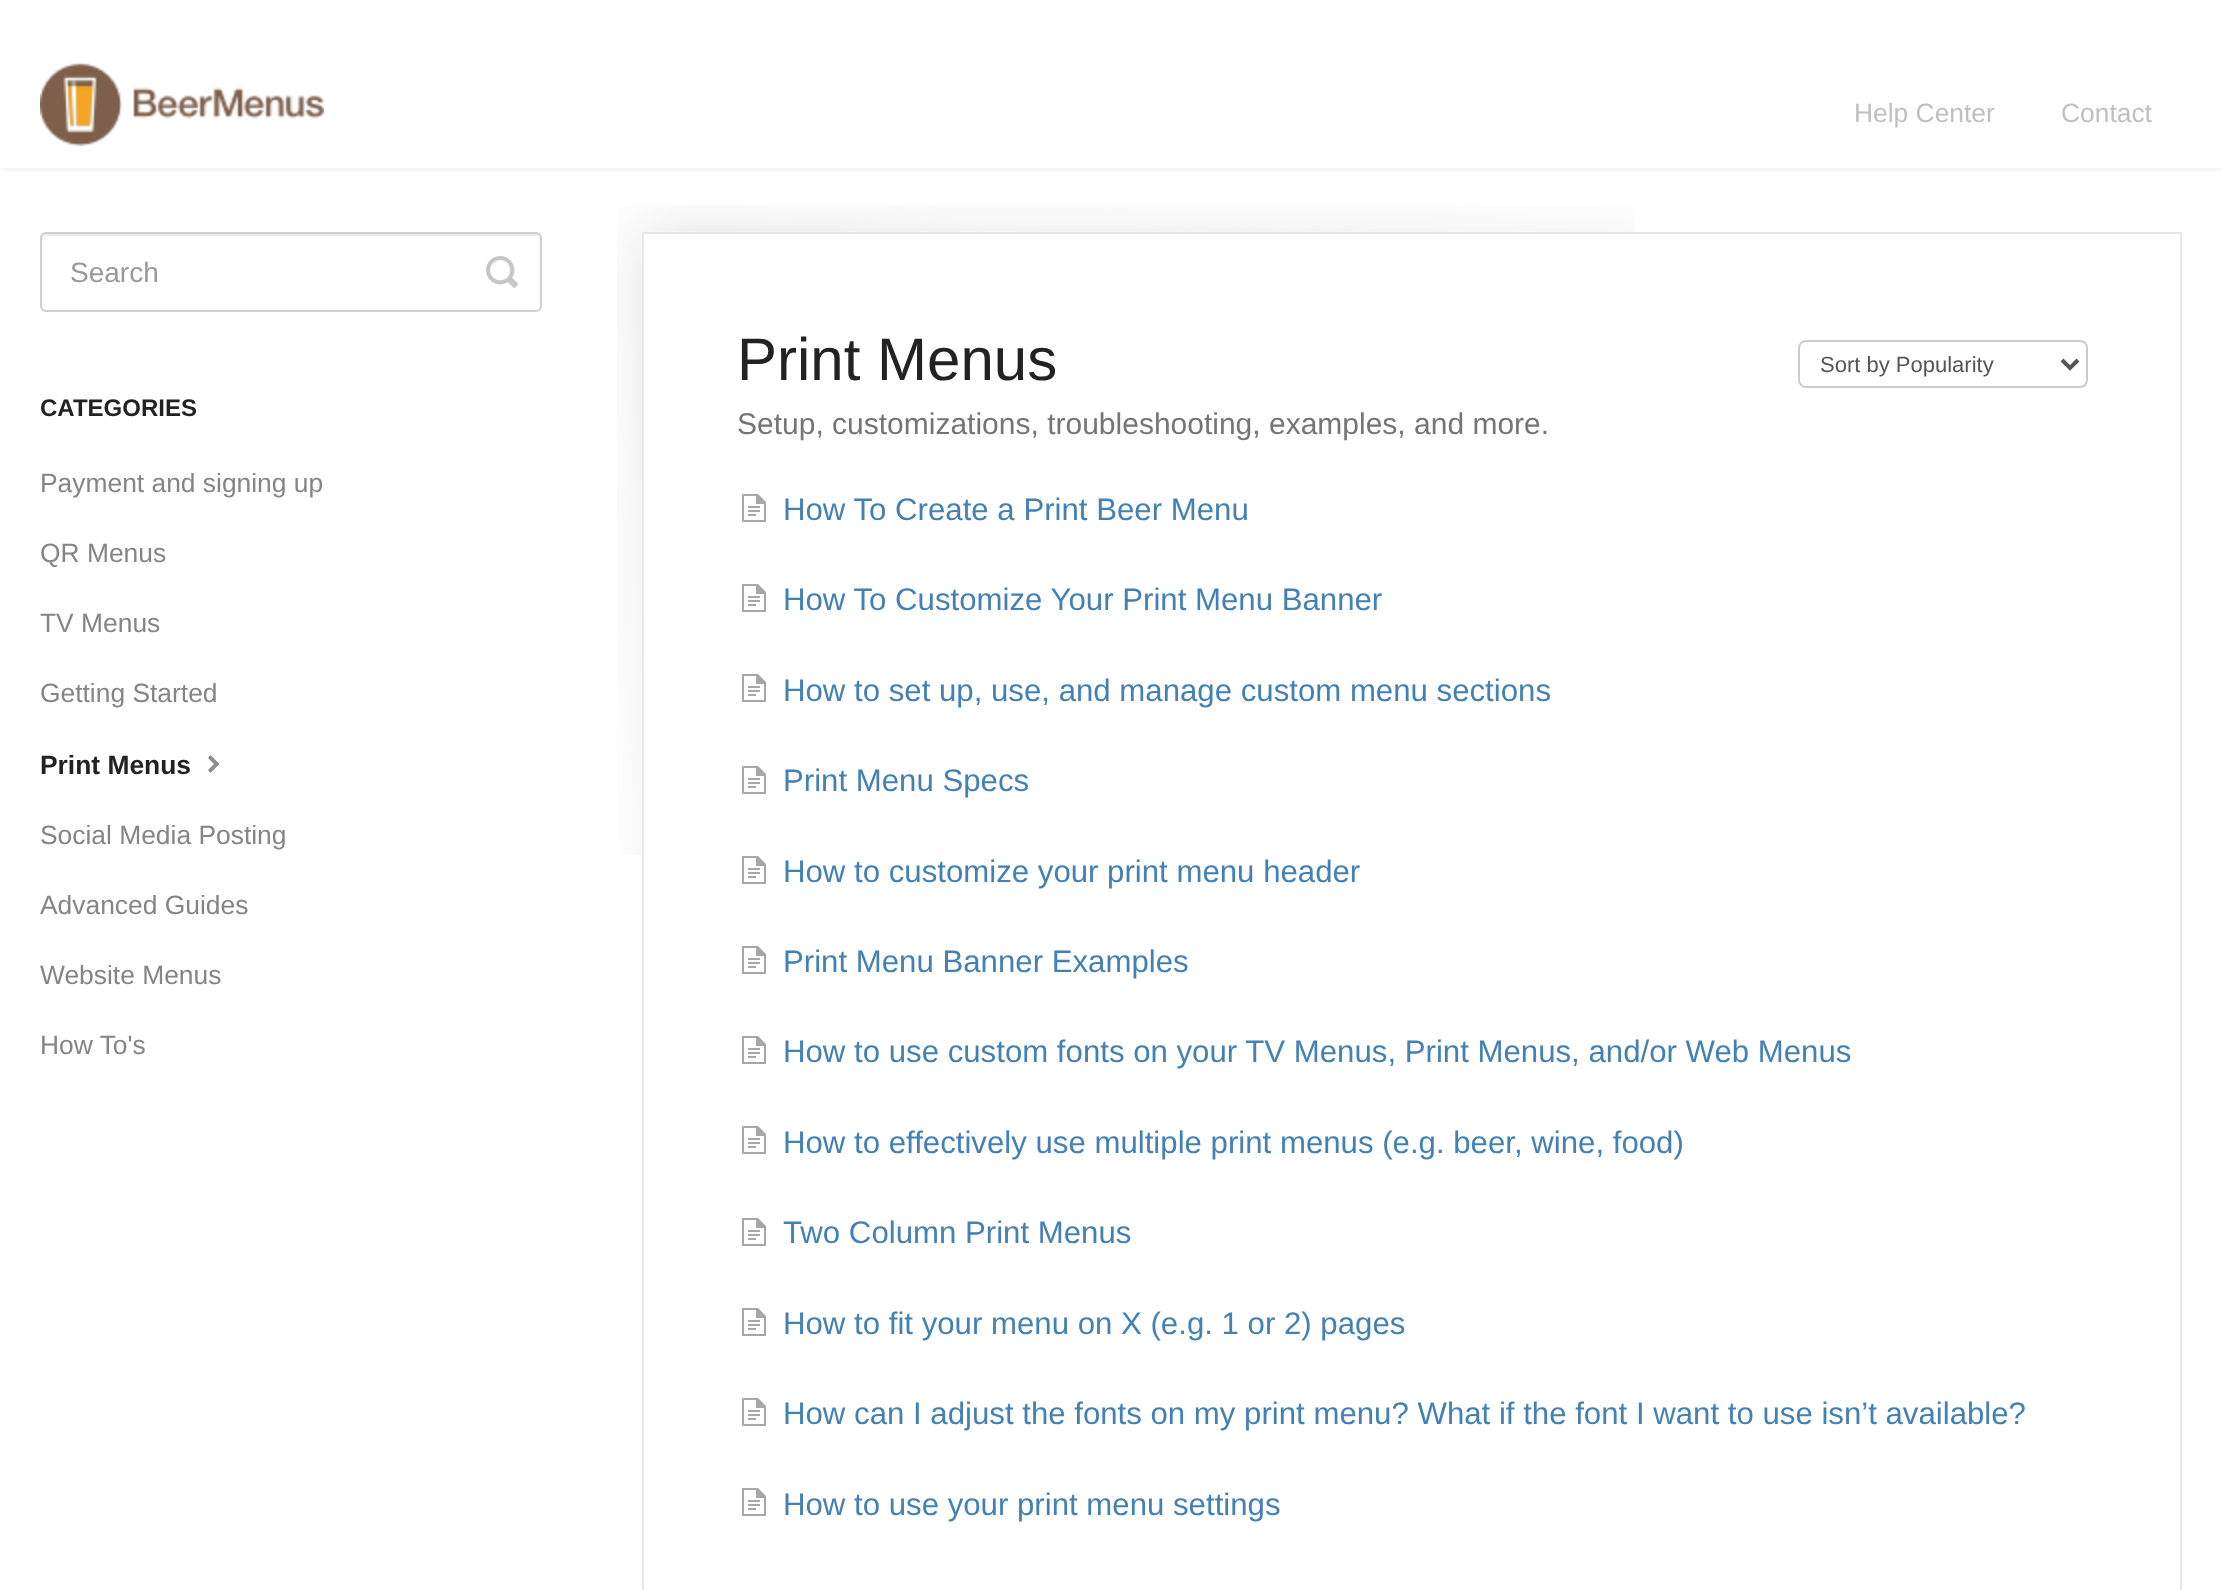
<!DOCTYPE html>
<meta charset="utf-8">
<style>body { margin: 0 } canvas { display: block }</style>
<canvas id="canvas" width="2222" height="1590"></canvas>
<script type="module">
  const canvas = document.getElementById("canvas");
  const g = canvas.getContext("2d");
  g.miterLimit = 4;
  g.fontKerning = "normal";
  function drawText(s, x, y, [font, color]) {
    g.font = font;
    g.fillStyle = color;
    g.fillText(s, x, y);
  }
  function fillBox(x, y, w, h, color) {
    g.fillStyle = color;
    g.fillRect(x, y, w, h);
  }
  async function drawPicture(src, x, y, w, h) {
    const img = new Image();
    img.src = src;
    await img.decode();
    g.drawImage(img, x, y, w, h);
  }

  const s1 = ["26.4px Liberation Sans", "#C0C0C0"];
  const s2 = ["28px Liberation Sans", "#999999"];
  const s3 = ["bold 24px Liberation Sans", "#222222"];
  const s4 = ["26.4px Liberation Sans", "#858585"];
  const s5 = ["bold 26.4px Liberation Sans", "#222222"];
  const s6 = ["60px Liberation Sans", "#222222"];
  const s7 = ["22px Liberation Sans", "#555555"];
  const s8 = ["30px Liberation Sans", "#757575"];
  const s9 = ["31.2px Liberation Sans", "#4381B5"];

  fillBox(0, 0, 2222, 1590, "#FFFFFF");
  g.save();
  g.beginPath();
  g.rect(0, 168, 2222, 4);
  g.clip();
  g.fillStyle = "rgba(0, 0, 0, 0.07)";
  g.filter = "blur(4px)";
  g.beginPath();
  g.rect(0, 2, 2222, 168);
  g.fill();
  g.filter = "none";
  g.restore();
  await drawPicture("pic1.png", 40, 63, 284, 83);
  drawText("Help Center", 1854, 122, s1);
  drawText("Contact", 2061, 122, s1);
  g.fillStyle = "#ECECEC";
  g.beginPath();
  g.moveTo(46, 236);
  g.lineTo(536, 236);
  g.bezierCurveTo(538, 236, 540, 238, 540, 240);
  g.bezierCurveTo(540, 237, 540, 234, 536, 234);
  g.lineTo(46, 234);
  g.bezierCurveTo(42, 234, 42, 237, 42, 240);
  g.bezierCurveTo(42, 238, 44, 236, 46, 236);
  g.closePath();
  g.fill();
  g.beginPath();
  g.roundRect(41, 233, 500, 78, 5);
  g.strokeStyle = "#D0D0D0";
  g.lineWidth = 2;
  g.stroke();
  drawText("Search", 70, 282, s2);
  await drawPicture("pic2.png", 486, 256, 32, 32);
  drawText("CATEGORIES", 40, 416, s3);
  drawText("Payment and signing up", 40, 492, s4);
  drawText("QR Menus", 40, 562, s4);
  drawText("TV Menus", 40, 632, s4);
  drawText("Getting Started", 40, 702, s4);
  drawText("Print Menus", 40, 774, s5);
  g.fillStyle = "#8D8D8D";
  g.beginPath();
  g.moveTo(210.5, 755);
  g.lineTo(208, 758);
  g.lineTo(214, 764);
  g.lineTo(208, 770);
  g.lineTo(210.5, 773);
  g.lineTo(219.5, 764);
  g.closePath();
  g.fill();
  drawText("Social Media Posting", 40, 844, s4);
  drawText("Advanced Guides", 40, 914, s4);
  drawText("Website Menus", 40, 984, s4);
  drawText("How To's", 40, 1054, s4);
  await drawPicture("pic3.png", 617, 205, 1018, 650);
  g.strokeStyle = "#E9E5E5";
  g.strokeRect(643, 233, 1538, 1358);
  drawText("Print Menus", 737, 380, s6);
  g.beginPath();
  g.roundRect(1799, 341, 288, 46, 7);
  g.strokeStyle = "#CCCCCC";
  g.stroke();
  g.beginPath();
  g.moveTo(2062, 360);
  g.lineTo(2070, 368);
  g.lineTo(2078, 360);
  g.strokeStyle = "#555555";
  g.lineWidth = 4;
  g.stroke();
  drawText("Sort by Popularity", 1820, 372, s7);
  drawText("Setup, customizations, troubleshooting, examples, and more.", 737, 434, s8);
  await drawPicture("pic4.png", 742, 494, 24, 28);
  drawText("How To Create a Print Beer Menu", 783, 520, s9);
  await drawPicture("pic4.png", 742, 584, 24, 28);
  drawText("How To Customize Your Print Menu Banner", 783, 610, s9);
  await drawPicture("pic4.png", 742, 674, 24, 28);
  drawText("How to set up, use, and manage custom menu sections", 783, 701, s9);
  await drawPicture("pic4.png", 742, 766, 24, 28);
  drawText("Print Menu Specs", 783, 791, s9);
  await drawPicture("pic4.png", 742, 856, 24, 28);
  drawText("How to customize your print menu header", 783, 882, s9);
  await drawPicture("pic4.png", 742, 946, 24, 28);
  drawText("Print Menu Banner Examples", 783, 972, s9);
  await drawPicture("pic4.png", 742, 1036, 24, 28);
  drawText("How to use custom fonts on your TV Menus, Print Menus, and/or Web Menus", 783, 1062, s9);
  await drawPicture("pic4.png", 742, 1126, 24, 28);
  drawText("How to effectively use multiple print menus (e.g. beer, wine, food)", 783, 1153, s9);
  await drawPicture("pic4.png", 742, 1218, 24, 28);
  drawText("Two Column Print Menus", 783, 1243, s9);
  await drawPicture("pic4.png", 742, 1308, 24, 28);
  drawText("How to fit your menu on X (e.g. 1 or 2) pages", 783, 1334, s9);
  await drawPicture("pic4.png", 742, 1398, 24, 28);
  drawText("How can I adjust the fonts on my print menu? What if the font I want to use isn’t available?", 783, 1424, s9);
  await drawPicture("pic4.png", 742, 1488, 24, 28);
  drawText("How to use your print menu settings", 783, 1515, s9);
</script>
